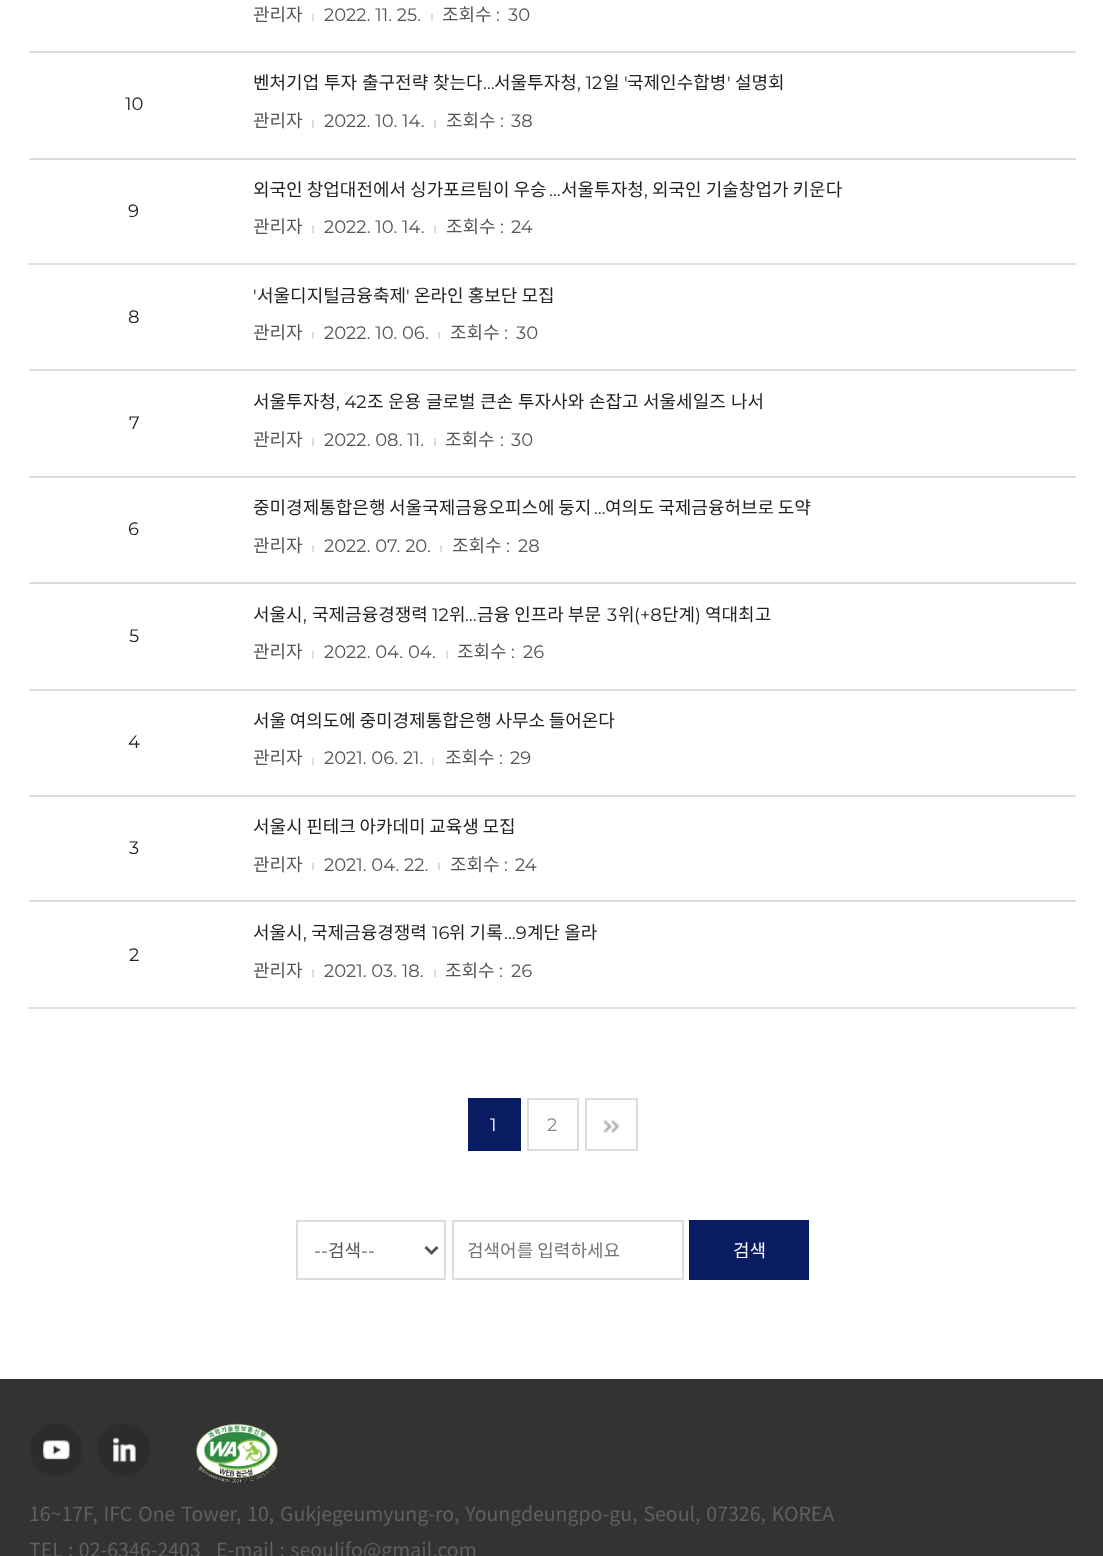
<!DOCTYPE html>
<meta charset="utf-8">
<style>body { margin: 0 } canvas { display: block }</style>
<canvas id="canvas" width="1103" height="1556"></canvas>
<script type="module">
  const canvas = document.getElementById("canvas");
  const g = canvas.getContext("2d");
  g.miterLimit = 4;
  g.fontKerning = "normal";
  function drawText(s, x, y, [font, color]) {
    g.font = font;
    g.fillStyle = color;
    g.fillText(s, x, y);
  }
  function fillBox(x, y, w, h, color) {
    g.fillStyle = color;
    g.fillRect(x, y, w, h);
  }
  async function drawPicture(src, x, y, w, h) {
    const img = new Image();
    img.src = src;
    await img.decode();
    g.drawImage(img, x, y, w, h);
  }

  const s1 = ["18px Noto Sans KR", "#555555"];
  const s2 = ["18px Montserrat", "#555555"];
  const s3 = ["18px Montserrat", "#222222"];
  const s4 = ["18px Noto Sans KR", "#222222"];
  const s5 = ["18px Montserrat", "#FFFFFF"];
  const s6 = ["18px Montserrat", "#888888"];
  const s7 = ["18px Noto Sans KR", "#757575"];
  const s8 = ["18px Noto Sans KR", "#FFFFFF"];
  const s9 = ["19.5px Noto Sans KR", "#606060"];

  fillBox(0, 0, 1103, 1556, "#FFFFFF");
  fillBox(29, 51, 1047, 2, "#DDDDDD");
  drawText("관리자", 253, 21, s1);
  fillBox(312, 14, 2, 7, "#DDDDDD");
  drawText("2022. 11. 25.", 324, 21, s2);
  fillBox(431, 14, 2, 7, "#DDDDDD");
  drawText("조회수", 442, 21, s1);
  drawText(":", 496, 21, s2);
  drawText("30", 508, 21, s2);
  drawText("10", 125, 110, s3);
  fillBox(29, 158, 1047, 2, "#DDDDDD");
  drawText("벤처기업", 253, 89, s4);
  drawText("투자", 324, 89, s4);
  drawText("출구전략", 362, 89, s4);
  drawText("찾는다", 433, 89, s4);
  drawText("서울투자청", 494, 89, s4);
  drawText(", 12", 577, 89, s3);
  drawText("일", 603, 89, s4);
  drawText("'", 624, 89, s3);
  drawText("국제인수합병", 627, 89, s4);
  drawText("'", 727, 89, s3);
  drawText("설명회", 735, 89, s4);
  drawText("…", 483, 89, s3);
  drawText("관리자", 253, 127, s1);
  fillBox(312, 120, 2, 8, "#DDDDDD");
  drawText("2022. 10. 14.", 324, 127, s2);
  fillBox(434, 120, 2, 8, "#DDDDDD");
  drawText("조회수", 446, 127, s1);
  drawText(":", 500, 127, s2);
  drawText("38", 511, 127, s2);
  drawText("9", 128, 217, s3);
  fillBox(29, 263, 1047, 2, "#DDDDDD");
  drawText("외국인 창업대전에서 싱가포르팀이 우승", 253, 196, s4);
  drawText("…", 549, 196, s3);
  drawText("서울투자청", 561, 196, s4);
  drawText(",", 644, 196, s3);
  drawText("외국인 기술창업가 키운다", 652, 196, s4);
  drawText("관리자", 253, 233, s1);
  fillBox(312, 225, 2, 8, "#DDDDDD");
  drawText("2022. 10. 14.", 324, 233, s2);
  fillBox(434, 225, 2, 8, "#DDDDDD");
  drawText("조회수", 446, 233, s1);
  drawText(":", 500, 233, s2);
  drawText("24", 511, 233, s2);
  drawText("8", 128, 323, s3);
  fillBox(29, 369, 1047, 2, "#DDDDDD");
  drawText("'", 253, 302, s3);
  drawText("서울디지털금융축제", 257, 302, s4);
  drawText("'", 406, 302, s3);
  drawText("온라인 홍보단 모집", 414, 302, s4);
  drawText("관리자", 253, 339, s1);
  fillBox(312, 332, 2, 7, "#DDDDDD");
  drawText("2022. 10. 06.", 324, 339, s2);
  fillBox(438, 332, 2, 7, "#DDDDDD");
  drawText("조회수", 450, 339, s1);
  drawText(":", 504, 339, s2);
  drawText("30", 516, 339, s2);
  drawText("7", 129, 429, s3);
  fillBox(29, 476, 1047, 2, "#DDDDDD");
  drawText("서울투자청", 253, 408, s4);
  drawText(", 42", 336, 408, s3);
  drawText("조", 367, 408, s4);
  drawText("운용", 388, 408, s4);
  drawText("글로벌", 426, 408, s4);
  drawText("큰손", 480, 408, s4);
  drawText("투자사와", 518, 408, s4);
  drawText("손잡고", 589, 408, s4);
  drawText("서울세일즈", 643, 408, s4);
  drawText("나서", 731, 408, s4);
  drawText("관리자", 253, 446, s1);
  fillBox(312, 438, 2, 8, "#DDDDDD");
  drawText("2022. 08. 11.", 324, 446, s2);
  fillBox(434, 438, 2, 8, "#DDDDDD");
  drawText("조회수", 445, 446, s1);
  drawText(":", 500, 446, s2);
  drawText("30", 511, 446, s2);
  drawText("6", 128, 535, s3);
  fillBox(29, 582, 1047, 2, "#DDDDDD");
  g.wordSpacing = "-0.5px";
  drawText("중미경제통합은행 서울국제금융오피스에 둥지", 253, 514, s4);
  g.wordSpacing = "0px";
  drawText("...", 594, 514, s3);
  g.wordSpacing = "-0.5px";
  drawText("여의도 국제금융허브로 도약", 605, 514, s4);
  g.wordSpacing = "0px";
  drawText("관리자", 253, 552, s1);
  fillBox(312, 545, 2, 7, "#DDDDDD");
  drawText("2022. 07. 20.", 324, 552, s2);
  fillBox(440, 545, 2, 7, "#DDDDDD");
  drawText("조회수", 452, 552, s1);
  drawText(":", 506, 552, s2);
  drawText("28", 518, 552, s2);
  drawText("5", 129, 642, s3);
  fillBox(29, 689, 1047, 2, "#DDDDDD");
  drawText("서울시", 253, 621, s4);
  drawText(",", 303, 621, s3);
  drawText("국제금융경쟁력", 312, 621, s4);
  drawText("12", 432, 621, s3);
  drawText("위", 449, 621, s4);
  drawText("…", 465, 621, s3);
  drawText("금융 인프라 부문", 477, 621, s4);
  drawText("3", 607, 621, s3);
  drawText("위", 618, 621, s4);
  drawText("(+8", 634, 621, s3);
  drawText("단계", 662, 621, s4);
  drawText(")", 695, 621, s3);
  drawText("역대최고", 705, 621, s4);
  drawText("관리자", 253, 658, s1);
  fillBox(312, 651, 2, 8, "#DDDDDD");
  drawText("2022. 04. 04.", 324, 658, s2);
  fillBox(446, 651, 2, 8, "#DDDDDD");
  drawText("조회수", 457, 658, s1);
  drawText(":", 511, 658, s2);
  drawText("26", 523, 658, s2);
  drawText("4", 128, 748, s3);
  fillBox(29, 795, 1047, 2, "#DDDDDD");
  g.wordSpacing = "-0.5px";
  drawText("서울 여의도에 중미경제통합은행 사무소 들어온다", 253, 727, s4);
  g.wordSpacing = "0px";
  drawText("관리자", 253, 764, s1);
  fillBox(312, 758, 2, 7, "#DDDDDD");
  drawText("2021. 06. 21.", 324, 764, s2);
  fillBox(432, 758, 2, 7, "#DDDDDD");
  drawText("조회수", 445, 764, s1);
  drawText(":", 499, 764, s2);
  drawText("29", 510, 764, s2);
  drawText("3", 129, 854, s3);
  fillBox(29, 900, 1047, 2, "#DDDDDD");
  g.wordSpacing = "-0.5px";
  drawText("서울시 핀테크 아카데미 교육생 모집", 253, 833, s4);
  g.wordSpacing = "0px";
  drawText("관리자", 253, 871, s1);
  fillBox(312, 863, 2, 7, "#DDDDDD");
  drawText("2021. 04. 22.", 324, 871, s2);
  fillBox(438, 863, 2, 7, "#DDDDDD");
  drawText("조회수", 450, 871, s1);
  drawText(":", 504, 871, s2);
  drawText("24", 515, 871, s2);
  drawText("2", 129, 961, s3);
  fillBox(29, 1007, 1047, 2, "#DDDDDD");
  drawText("서울시", 253, 939, s4);
  drawText(",", 303, 939, s3);
  drawText("국제금융경쟁력", 311, 939, s4);
  drawText("16", 432, 939, s3);
  drawText("위 기록", 449, 939, s4);
  drawText("…9", 504, 939, s3);
  drawText("계단 올라", 527, 939, s4);
  drawText("관리자", 253, 977, s1);
  fillBox(312, 969, 2, 8, "#DDDDDD");
  drawText("2021. 03. 18.", 324, 977, s2);
  fillBox(434, 969, 2, 8, "#DDDDDD");
  drawText("조회수", 445, 977, s1);
  drawText(":", 499, 977, s2);
  drawText("26", 511, 977, s2);
  fillBox(468, 1098, 53, 53, "#091B61");
  drawText("1", 490, 1131, s5);
  g.strokeStyle = "#DDDDDD";
  g.lineWidth = 2;
  g.strokeRect(528, 1099, 50, 51);
  drawText("2", 547, 1131, s6);
  g.strokeRect(586, 1099, 51, 51);
  await drawPicture("pic1.png", 603, 1120, 17, 13);
  g.strokeRect(297, 1221, 148, 58);
  g.beginPath();
  g.moveTo(425.5, 1247);
  g.lineTo(431.5, 1253);
  g.lineTo(437.5, 1247);
  g.strokeStyle = "#555555";
  g.lineWidth = 3;
  g.stroke();
  drawText("--", 314, 1257, s2);
  drawText("검색", 328, 1257, s1);
  drawText("--", 361, 1257, s2);
  g.strokeStyle = "#DDDDDD";
  g.lineWidth = 2;
  g.strokeRect(453, 1221, 230, 58);
  drawText("검색어를 입력하세요", 467, 1257, s7);
  fillBox(689, 1220, 120, 60, "#091B61");
  drawText("검색", 733, 1257, s8);
  fillBox(0, 1379, 1103, 177, "#333333");
  await drawPicture("pic2.png", 30, 1424, 52, 52);
  await drawPicture("pic3.png", 98, 1424, 52, 52);
  await drawPicture("pic4.png", 196, 1423, 83, 61);
  g.wordSpacing = "1.5px";
  drawText("16~17F, IFC One Tower, 10, Gukjegeumyung-ro, Youngdeungpo-gu, Seoul, 07326, KOREA", 29, 1521, s9);
  g.wordSpacing = "1px";
  drawText("TEL : 02-6346-2403", 29, 1557, s9);
  drawText("E-mail : seoulifo@gmail.com", 216, 1557, s9);
</script>
